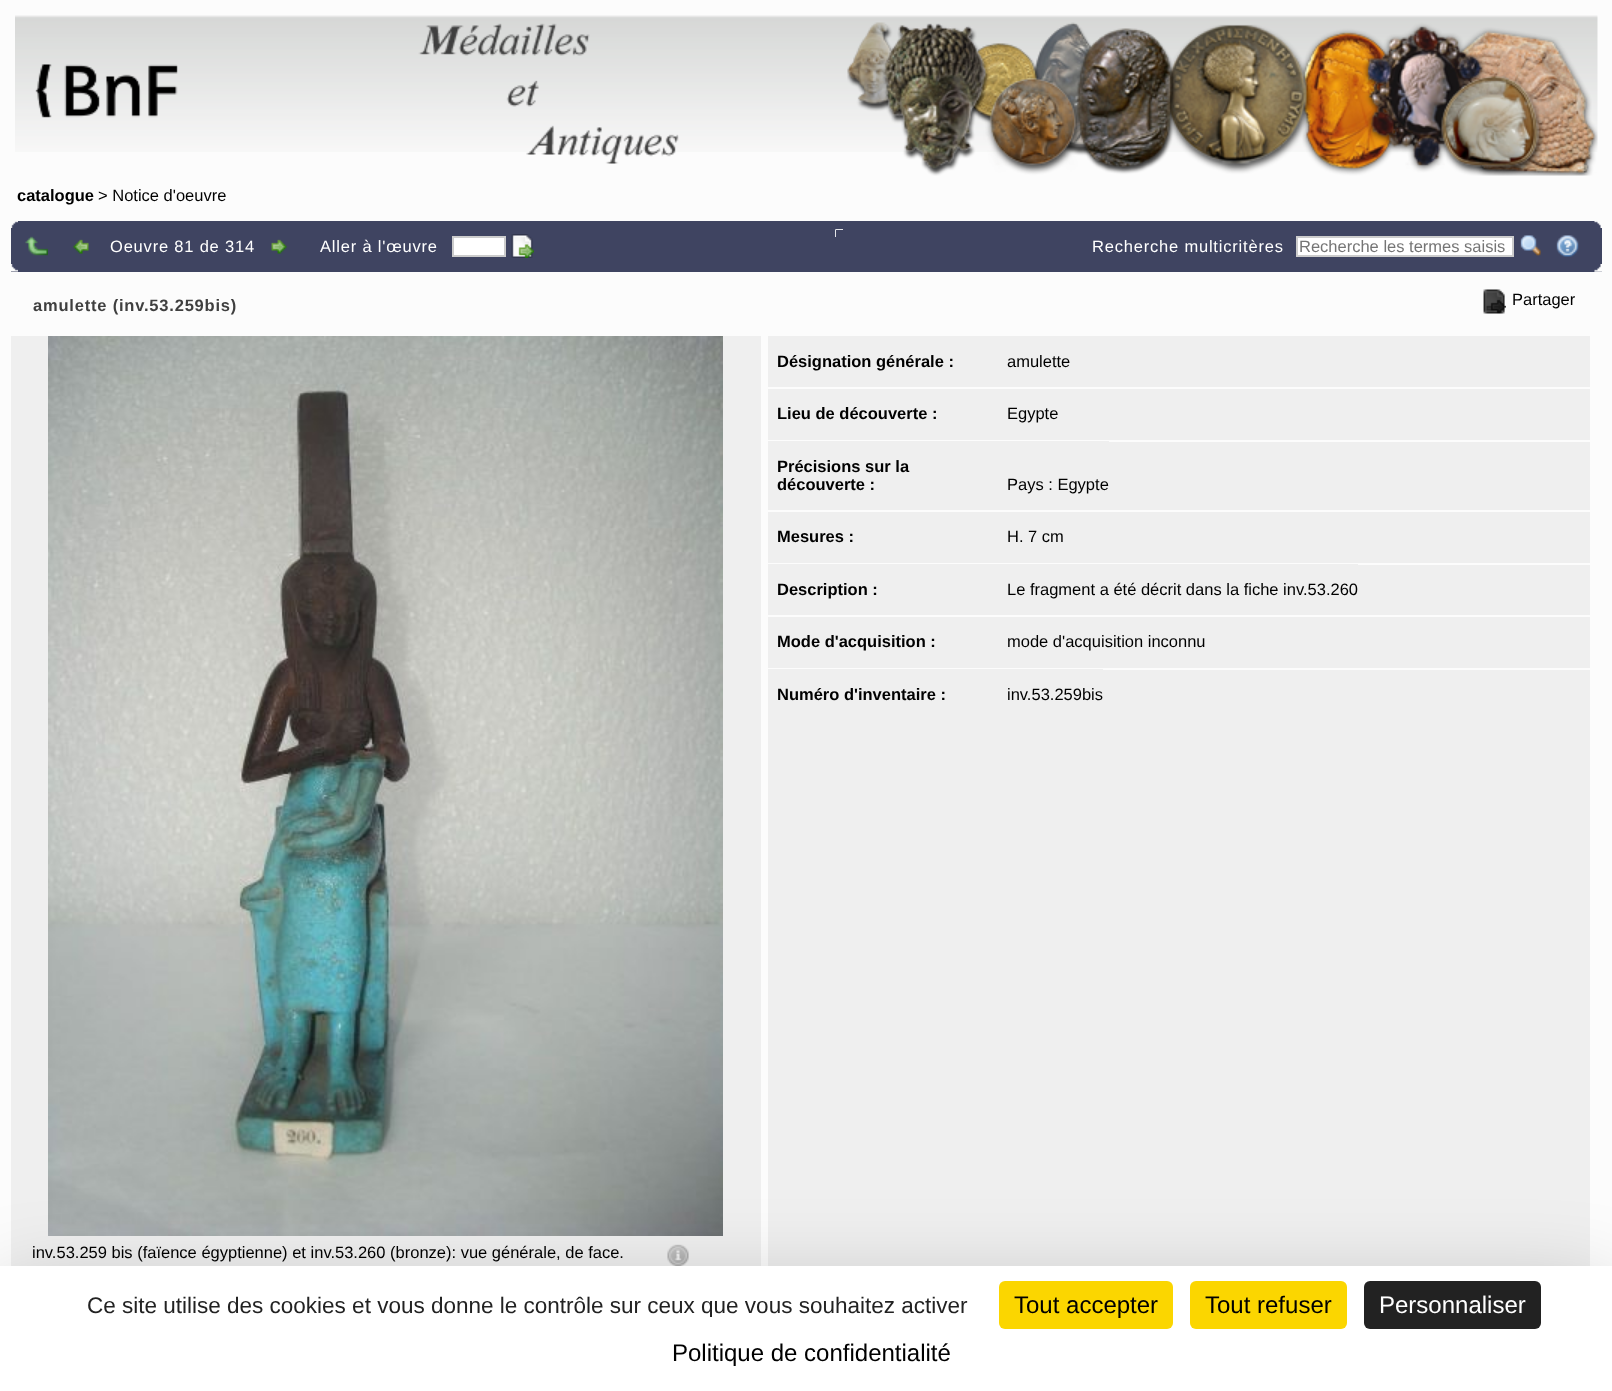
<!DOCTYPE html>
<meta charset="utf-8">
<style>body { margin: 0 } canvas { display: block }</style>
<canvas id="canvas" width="1612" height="1391"></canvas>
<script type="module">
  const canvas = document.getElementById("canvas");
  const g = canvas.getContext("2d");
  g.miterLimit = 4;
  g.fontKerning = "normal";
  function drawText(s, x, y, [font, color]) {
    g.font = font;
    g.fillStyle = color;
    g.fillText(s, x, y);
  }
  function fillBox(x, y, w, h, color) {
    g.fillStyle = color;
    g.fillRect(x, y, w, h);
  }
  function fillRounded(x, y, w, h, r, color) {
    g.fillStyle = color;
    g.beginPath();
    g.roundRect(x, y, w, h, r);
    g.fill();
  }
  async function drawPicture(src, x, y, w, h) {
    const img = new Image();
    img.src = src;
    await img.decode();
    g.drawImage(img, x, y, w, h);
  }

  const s1 = ["bold 16.5px Liberation Sans", "#000000"];
  const s2 = ["16.5px Liberation Sans", "#000000"];
  const s3 = ["16.5px Liberation Sans", "#FFFFFF"];
  const s4 = ["16.5px Liberation Sans", "#757575"];
  const s5 = ["bold 16.5px Liberation Sans", "#3F3F3F"];
  const s6 = ["22.5px Liberation Sans", "#222222"];
  const s7 = ["24px Liberation Sans", "#000000"];
  const s8 = ["24px Liberation Sans", "#FFFFFF"];

  fillBox(0, 0, 1612, 1391, "#FCFCFC");
  await drawPicture("pic1.png", 15, 15, 1583, 137);
  await drawPicture("pic2.png", 35, 23, 644, 141);
  await drawPicture("pic3.png", 847, 22, 751, 154);
  drawText("catalogue", 17, 201, s1);
  drawText("> Notice d'oeuvre", 98, 201, s2);
  fillBox(11, 221, 1591, 51, "#3F4461");
  await drawPicture("pic4.png", 11, 221, 7, 7);
  await drawPicture("pic5.png", 1594, 221, 8, 7);
  await drawPicture("pic6.png", 11, 264, 7, 8);
  await drawPicture("pic7.png", 25, 236, 23, 20);
  await drawPicture("pic8.png", 73, 239, 16, 15);
  g.letterSpacing = "0.8px";
  drawText("Oeuvre 81 de 314", 110, 252, s3);
  await drawPicture("pic9.png", 271, 239, 16, 15);
  drawText("Aller à l'œuvre", 320, 252, s3);
  g.beginPath();
  g.rect(453, 237, 52, 19);
  g.fill();
  g.strokeStyle = "#CCCCCC";
  g.lineWidth = 2;
  g.stroke();
  await drawPicture("pic10.png", 511, 234, 23, 24);
  await drawPicture("pic11.png", 1594, 264, 8, 8);
  await drawPicture("pic12.png", 835, 229, 8, 8);
  await drawPicture("pic13.png", 835, 229, 8, 8);
  await drawPicture("pic14.png", 835, 229, 8, 8);
  fillBox(836, 230, 7, 7, "#3F4461");
  drawText("Recherche multicritères", 1092, 252, s3);
  g.beginPath();
  g.rect(1297, 237, 216, 19);
  g.fill();
  g.stroke();
  g.letterSpacing = "0px";
  drawText("Recherche les termes saisis", 1299, 252, s4);
  await drawPicture("pic15.png", 1520, 235, 21, 22);
  await drawPicture("pic16.png", 1556, 235, 23, 22);
  await drawPicture("pic17.png", 1594, 271, 8, 1);
  g.letterSpacing = "0.8px";
  drawText("amulette (inv.53.259bis)", 33, 311, s5);
  await drawPicture("pic18.png", 1483, 289, 23, 25);
  g.letterSpacing = "0px";
  drawText("Partager", 1512, 305, s2);
  fillBox(768, 336, 822, 930, "#EFEFEF");
  drawText("Désignation générale :", 777, 367, s1);
  drawText("amulette", 1007, 367, s2);
  fillBox(768, 387, 822, 2, "#FCFCFC");
  drawText("Lieu de découverte :", 777, 419, s1);
  drawText("Egypte", 1007, 419, s2);
  fillBox(768, 440, 822, 2, "#FCFCFC");
  fillBox(768, 441, 341, 1, "#EFEFEF");
  drawText("Précisions sur la", 777, 472, s1);
  drawText("découverte :", 777, 490, s1);
  drawText("Pays : Egypte", 1007, 490, s2);
  fillBox(768, 510, 822, 2, "#FCFCFC");
  drawText("Mesures :", 777, 542, s1);
  drawText("H. 7 cm", 1007, 542, s2);
  fillBox(768, 563, 822, 2, "#FCFCFC");
  fillBox(768, 564, 590, 1, "#EFEFEF");
  drawText("Description :", 777, 595, s1);
  drawText("Le fragment a été décrit dans la fiche inv.53.260", 1007, 595, s2);
  fillBox(768, 615, 822, 2, "#FCFCFC");
  drawText("Mode d'acquisition :", 777, 647, s1);
  drawText("mode d'acquisition inconnu", 1007, 647, s2);
  fillBox(768, 668, 822, 2, "#FCFCFC");
  fillBox(768, 669, 335, 1, "#EFEFEF");
  drawText("Numéro d'inventaire :", 777, 700, s1);
  drawText("inv.53.259bis", 1007, 700, s2);
  fillBox(11, 336, 750, 930, "#EFEFEF");
  await drawPicture("pic19.png", 48, 336, 675, 900);
  drawText("inv.53.259 bis (faïence égyptienne) et inv.53.260 (bronze): vue générale, de face.", 32, 1258, s2);
  await drawPicture("pic20.png", 667, 1244, 22, 22);
  g.fillStyle = "rgba(0, 0, 0, 0.25)";
  g.filter = "blur(45px)";
  g.beginPath();
  g.rect(0, 1296, 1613, 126);
  g.fill();
  g.filter = "none";
  fillBox(0, 1266, 1612, 125, "#FFFFFF");
  g.save();
  g.beginPath();
  g.rect(72, 1292, 911, 25);
  g.clip();
  drawText("Ce site utilise des cookies et vous donne le contrôle sur ceux que vous souhaitez activer", 87, 1313, s6);
  g.restore();
  fillRounded(999, 1281, 174, 48, 6, "#FBD600");
  drawText("Tout accepter", 1014, 1313, s7);
  fillRounded(1190, 1281, 157, 48, 6, "#FBD600");
  drawText("Tout refuser", 1205, 1313, s7);
  fillRounded(1364, 1281, 177, 48, 6, "#222222");
  drawText("Personnaliser", 1379, 1313, s8);
  drawText("Politique de confidentialité", 672, 1361, s7);
</script>
